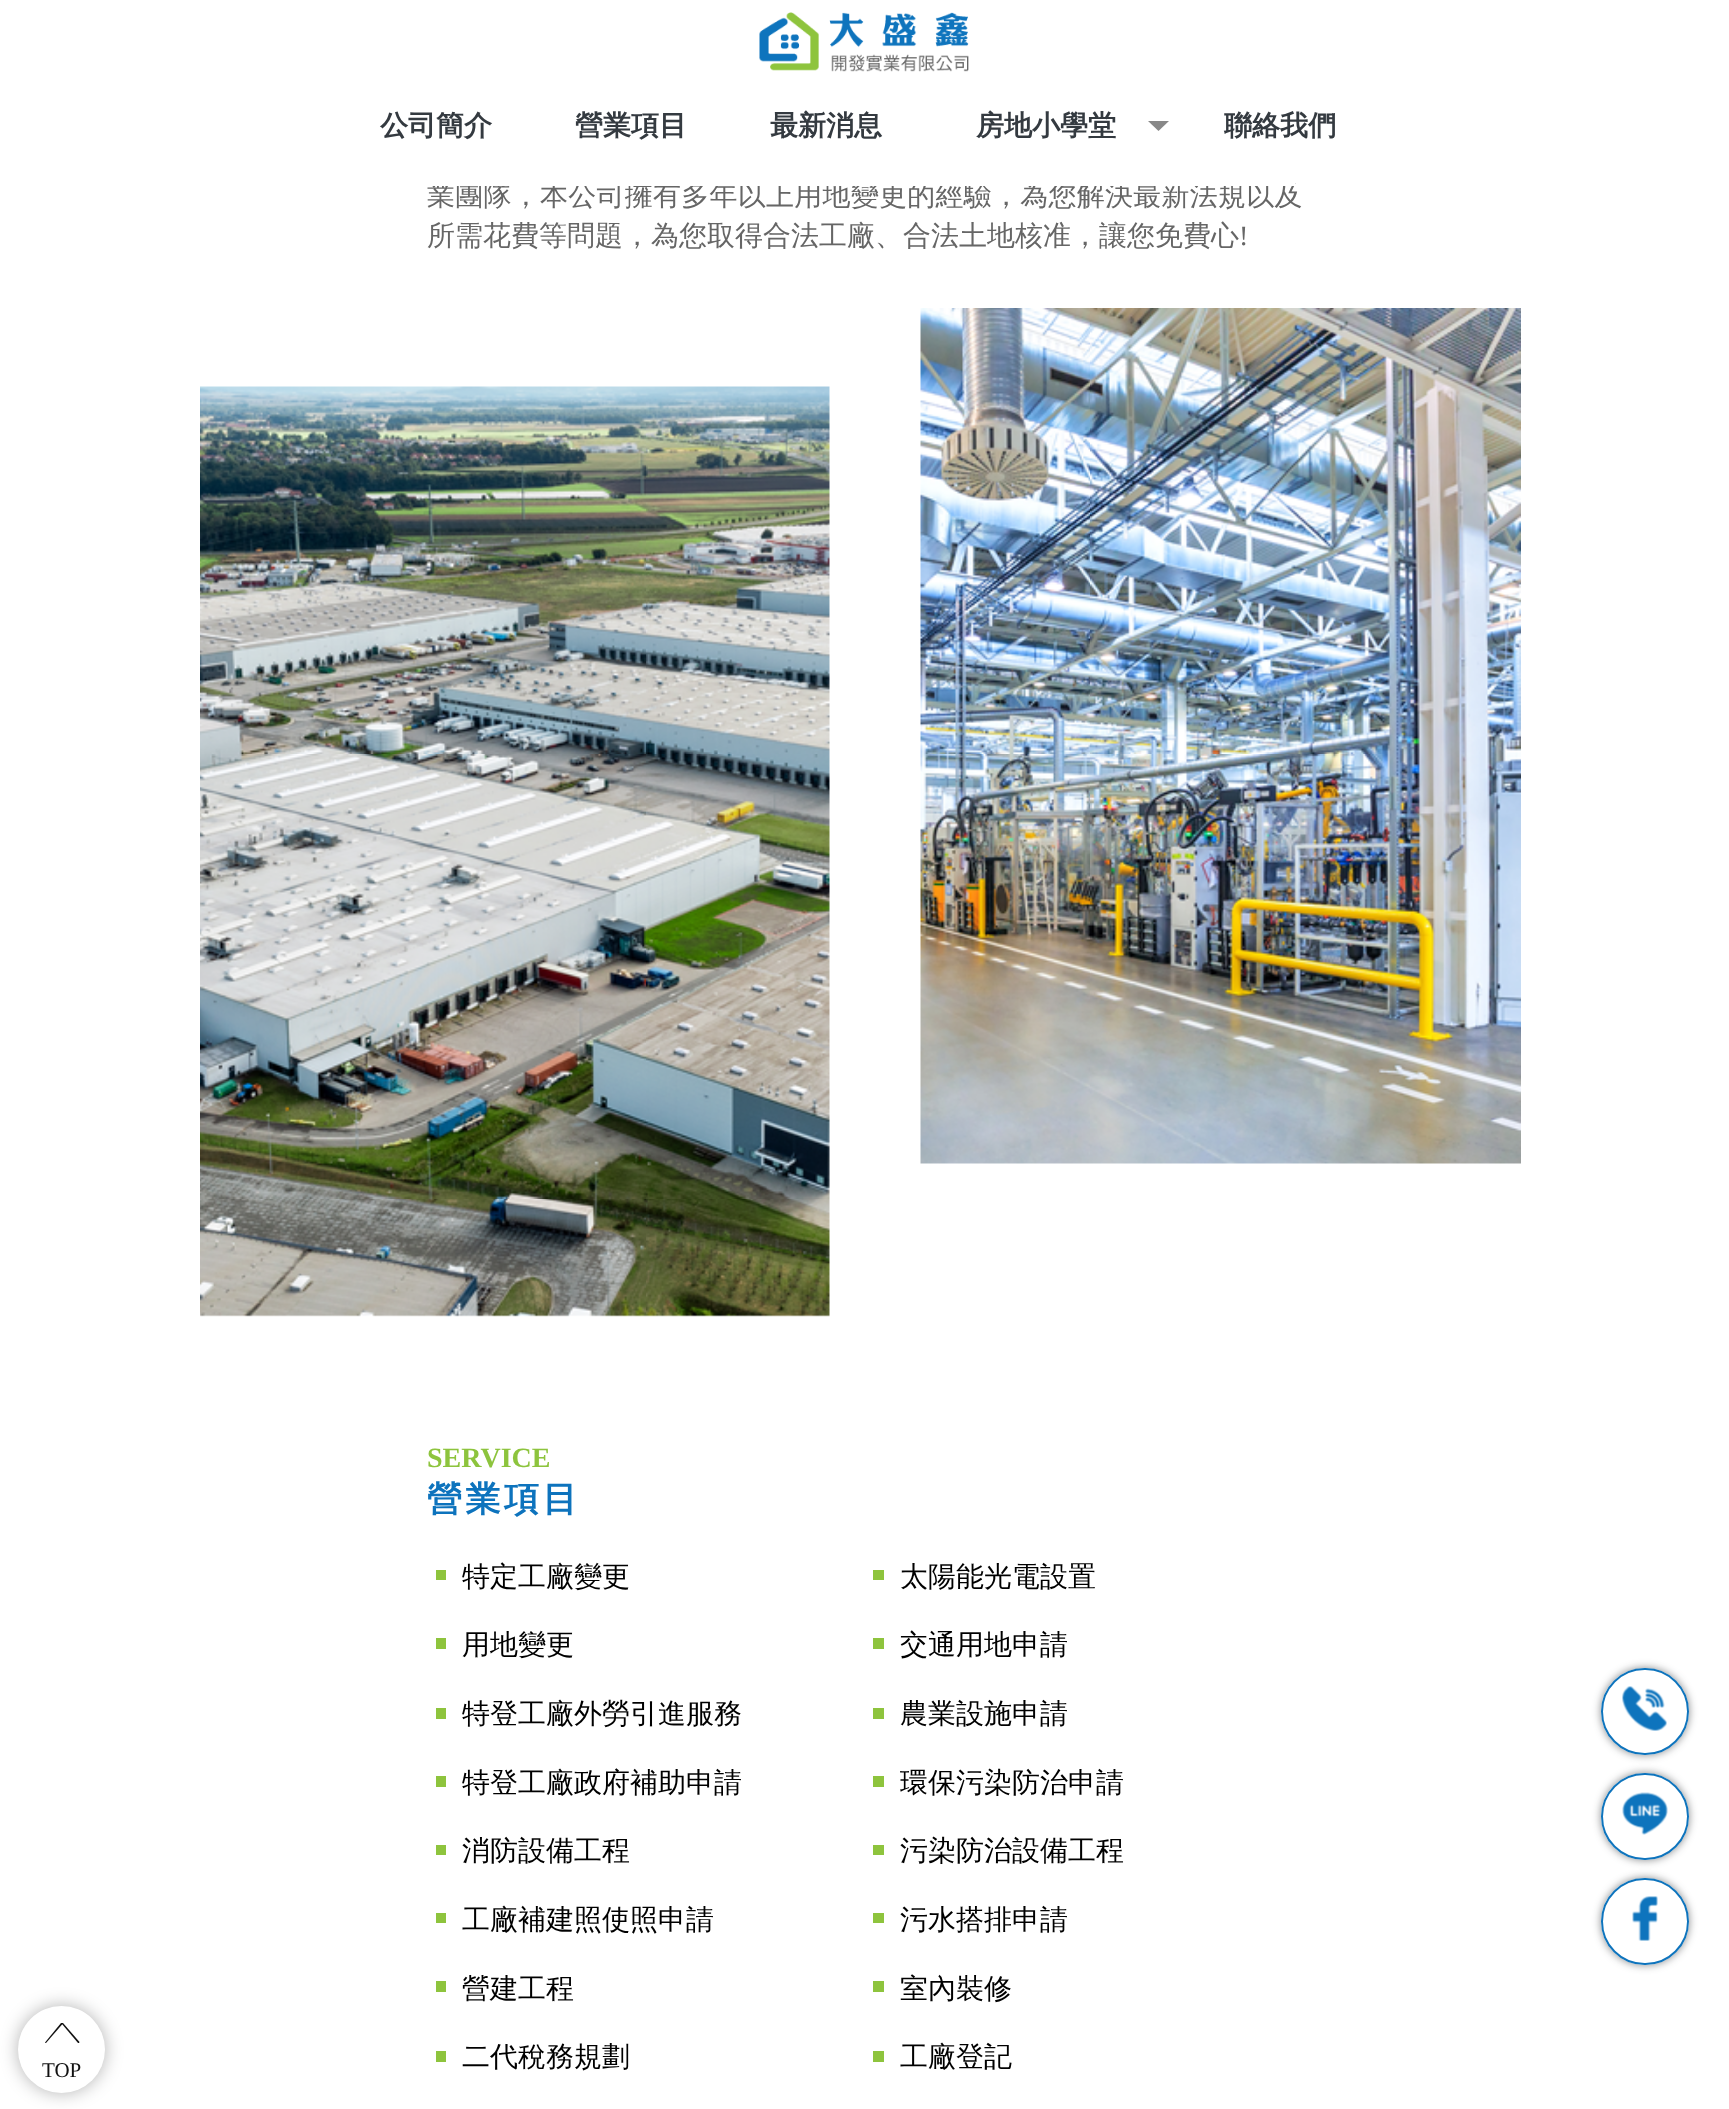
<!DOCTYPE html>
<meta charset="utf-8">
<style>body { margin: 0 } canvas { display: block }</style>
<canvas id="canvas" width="1729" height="2109"></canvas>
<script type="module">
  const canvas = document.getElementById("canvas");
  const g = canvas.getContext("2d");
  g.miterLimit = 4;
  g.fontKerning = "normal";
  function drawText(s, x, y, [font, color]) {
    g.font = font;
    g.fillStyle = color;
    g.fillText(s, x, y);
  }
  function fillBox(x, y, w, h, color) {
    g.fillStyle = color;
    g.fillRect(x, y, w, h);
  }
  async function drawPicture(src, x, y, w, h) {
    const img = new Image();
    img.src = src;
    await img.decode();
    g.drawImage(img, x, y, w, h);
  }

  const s1 = ["500 28px WenQuanYi Zen Hei", "#666666"];
  const s2 = ["bold 28px WenQuanYi Zen Hei", "#343A40"];
  const s3 = ["28px Liberation Serif", "#666666"];
  const s4 = ["bold 28px Liberation Serif", "#8DC43D"];
  const s5 = ["bold 35px WenQuanYi Zen Hei", "#0D73BD"];
  const s6 = ["500 28px WenQuanYi Zen Hei", "#000000"];
  const s7 = ["21px Liberation Serif", "#111111"];

  fillBox(0, 0, 1729, 2109, "#FFFFFF");
  g.letterSpacing = "0.25px";
  drawText("業團隊，本公司擁有多年以上用地變更的經驗，為您解決最新法規以及", 427, 205, s1);
  fillBox(430, 181, 865, 5, "#FFFFFF");
  await drawPicture("pic1.png", 759, 12, 210, 60);
  g.letterSpacing = "0px";
  drawText("公司簡介", 380, 135, s2);
  drawText("營業項目", 575, 135, s2);
  drawText("最新消息", 770, 135, s2);
  drawText("房地小學堂", 976, 135, s2);
  g.fillStyle = "#888888";
  g.beginPath();
  g.moveTo(1148, 121);
  g.lineTo(1169, 121);
  g.lineTo(1158.5, 131);
  g.closePath();
  g.fill();
  drawText("聯絡我們", 1224, 135, s2);
  drawText("所需花費等問題，為您取得合法工廠、合法土地核准，讓您免費心", 427, 245, s1);
  drawText("!", 1239, 245, s3);
  await drawPicture("pic2.png", 200, 308, 1321, 1009);
  drawText("SERVICE", 427, 1467, s4);
  g.letterSpacing = "3.5px";
  drawText("營業項目", 427, 1511, s5);
  fillBox(436, 1570, 10, 10, "#8EC43D");
  g.letterSpacing = "0px";
  drawText("特定工廠變更", 462, 1586, s6);
  fillBox(873, 1570, 11, 10, "#8EC43D");
  drawText("太陽能光電設置", 900, 1586, s6);
  fillBox(436, 1638, 10, 11, "#8EC43D");
  drawText("用地變更", 462, 1654, s6);
  fillBox(873, 1638, 11, 11, "#8EC43D");
  drawText("交通用地申請", 900, 1654, s6);
  fillBox(436, 1708, 10, 11, "#8EC43D");
  drawText("特登工廠外勞引進服務", 462, 1723, s6);
  fillBox(873, 1708, 11, 11, "#8EC43D");
  drawText("農業設施申請", 900, 1723, s6);
  fillBox(436, 1776, 10, 11, "#8EC43D");
  drawText("特登工廠政府補助申請", 462, 1792, s6);
  fillBox(873, 1776, 11, 11, "#8EC43D");
  drawText("環保污染防治申請", 900, 1792, s6);
  fillBox(436, 1845, 10, 10, "#8EC43D");
  drawText("消防設備工程", 462, 1860, s6);
  fillBox(873, 1845, 11, 10, "#8EC43D");
  drawText("污染防治設備工程", 900, 1860, s6);
  fillBox(436, 1913, 10, 10, "#8EC43D");
  drawText("工廠補建照使照申請", 462, 1929, s6);
  fillBox(873, 1913, 11, 10, "#8EC43D");
  drawText("污水搭排申請", 900, 1929, s6);
  fillBox(436, 1981, 10, 11, "#8EC43D");
  drawText("營建工程", 462, 1998, s6);
  fillBox(873, 1981, 11, 11, "#8EC43D");
  drawText("室內裝修", 900, 1998, s6);
  fillBox(436, 2051, 10, 11, "#8EC43D");
  drawText("二代稅務規劃", 462, 2066, s6);
  fillBox(873, 2051, 11, 11, "#8EC43D");
  drawText("工廠登記", 900, 2066, s6);
  g.save();
  g.beginPath();
  g.moveTo(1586, 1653);
  g.lineTo(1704, 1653);
  g.lineTo(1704, 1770);
  g.lineTo(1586, 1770);
  g.closePath();
  g.moveTo(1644.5, 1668);
  g.lineTo(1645.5, 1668);
  g.bezierCurveTo(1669.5, 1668, 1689, 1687.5, 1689, 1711.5);
  g.bezierCurveTo(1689, 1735.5, 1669.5, 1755, 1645.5, 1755);
  g.lineTo(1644.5, 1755);
  g.bezierCurveTo(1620.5, 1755, 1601, 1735.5, 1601, 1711.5);
  g.bezierCurveTo(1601, 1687.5, 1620.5, 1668, 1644.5, 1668);
  g.closePath();
  g.clip("evenodd");
  g.fillStyle = "rgba(26, 31, 34, 0.53)";
  g.filter = "blur(4.5px)";
  g.beginPath();
  g.roundRect(1601, 1668, 88, 87, 43.5);
  g.fill();
  g.filter = "none";
  g.restore();
  g.fillStyle = "rgba(255, 255, 255, 0.67)";
  g.beginPath();
  g.roundRect(1602, 1669, 86, 85, 42.5);
  g.fill();
  g.strokeStyle = "#0E74BD";
  g.lineWidth = 2;
  g.stroke();
  await drawPicture("pic3.png", 1622, 1686, 45, 45);
  g.save();
  g.beginPath();
  g.moveTo(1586, 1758);
  g.lineTo(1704, 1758);
  g.lineTo(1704, 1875);
  g.lineTo(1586, 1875);
  g.closePath();
  g.moveTo(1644.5, 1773);
  g.lineTo(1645.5, 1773);
  g.bezierCurveTo(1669.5, 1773, 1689, 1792.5, 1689, 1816.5);
  g.bezierCurveTo(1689, 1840.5, 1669.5, 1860, 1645.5, 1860);
  g.lineTo(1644.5, 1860);
  g.bezierCurveTo(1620.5, 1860, 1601, 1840.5, 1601, 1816.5);
  g.bezierCurveTo(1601, 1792.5, 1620.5, 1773, 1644.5, 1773);
  g.closePath();
  g.clip("evenodd");
  g.fillStyle = "rgba(26, 31, 34, 0.53)";
  g.filter = "blur(4.5px)";
  g.beginPath();
  g.roundRect(1601, 1773, 88, 87, 43.5);
  g.fill();
  g.filter = "none";
  g.restore();
  g.beginPath();
  g.roundRect(1602, 1774, 86, 85, 42.5);
  g.fill();
  g.stroke();
  await drawPicture("pic4.png", 1622, 1792, 46, 43);
  g.save();
  g.beginPath();
  g.moveTo(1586, 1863);
  g.lineTo(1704, 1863);
  g.lineTo(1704, 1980);
  g.lineTo(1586, 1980);
  g.closePath();
  g.moveTo(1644.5, 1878);
  g.lineTo(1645.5, 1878);
  g.bezierCurveTo(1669.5, 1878, 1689, 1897.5, 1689, 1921.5);
  g.bezierCurveTo(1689, 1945.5, 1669.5, 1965, 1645.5, 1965);
  g.lineTo(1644.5, 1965);
  g.bezierCurveTo(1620.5, 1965, 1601, 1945.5, 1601, 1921.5);
  g.bezierCurveTo(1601, 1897.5, 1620.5, 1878, 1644.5, 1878);
  g.closePath();
  g.clip("evenodd");
  g.fillStyle = "rgba(26, 31, 34, 0.53)";
  g.filter = "blur(4.5px)";
  g.beginPath();
  g.roundRect(1601, 1878, 88, 87, 43.5);
  g.fill();
  g.filter = "none";
  g.restore();
  g.beginPath();
  g.roundRect(1602, 1879, 86, 85, 42.5);
  g.fill();
  g.stroke();
  await drawPicture("pic5.png", 1632, 1896, 26, 45);
  g.fillStyle = "rgba(0, 0, 0, 0.3)";
  g.filter = "blur(9px)";
  g.beginPath();
  g.roundRect(18, 2006, 87, 87, 43.5);
  g.fill();
  g.filter = "none";
  g.fillStyle = "#FFFFFF";
  g.beginPath();
  g.arc(61.5, 2049.5, 43.5, 0, Math.PI * 2);
  g.fill();
  g.fillStyle = "#111111";
  g.beginPath();
  g.moveTo(62, 2023);
  g.lineTo(63, 2023);
  g.lineTo(79.5, 2042);
  g.lineTo(79, 2043);
  g.lineTo(78, 2043);
  g.lineTo(62, 2024);
  g.closePath();
  g.fill();
  g.beginPath();
  g.moveTo(62, 2023);
  g.lineTo(62.5, 2024);
  g.lineTo(46, 2043);
  g.lineTo(45.5, 2043);
  g.lineTo(45, 2042.5);
  g.lineTo(61, 2023);
  g.closePath();
  g.fill();
  drawText("TOP", 42, 2077, s7);
</script>
